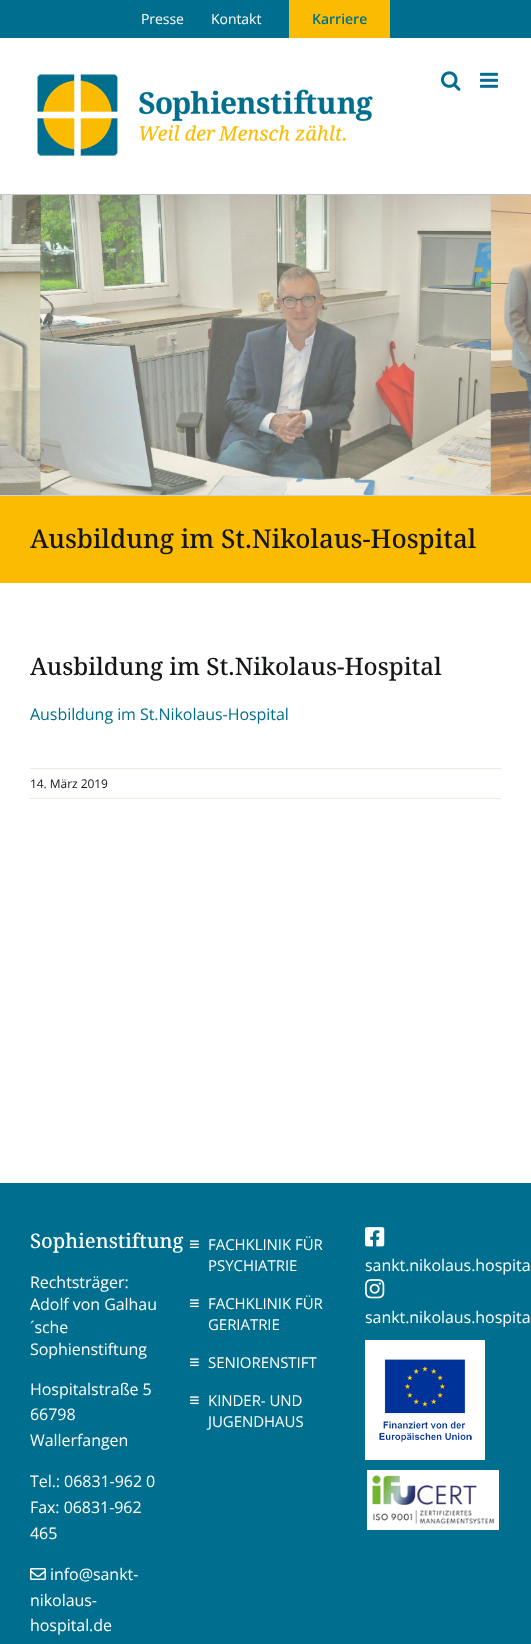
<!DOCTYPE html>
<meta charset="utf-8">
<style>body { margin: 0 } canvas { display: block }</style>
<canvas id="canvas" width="531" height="1644"></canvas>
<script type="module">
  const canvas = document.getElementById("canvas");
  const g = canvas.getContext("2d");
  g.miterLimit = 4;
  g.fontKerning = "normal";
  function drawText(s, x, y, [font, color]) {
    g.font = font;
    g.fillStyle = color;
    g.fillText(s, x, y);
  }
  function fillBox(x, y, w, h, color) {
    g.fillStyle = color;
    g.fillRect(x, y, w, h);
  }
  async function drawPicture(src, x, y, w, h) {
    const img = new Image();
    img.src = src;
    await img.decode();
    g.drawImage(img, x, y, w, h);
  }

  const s1 = ["14px Open Sans", "#FFFFFF"];
  const s2 = ["600 14px Open Sans", "#006E8E"];
  const s3 = ["500 26px Noto Serif", "#141617"];
  const s4 = ["500 24px Noto Serif", "#141617"];
  const s5 = ["16px Open Sans", "#006E8E"];
  const s6 = ["12px Open Sans", "#141617"];
  const s7 = ["500 20px Noto Serif", "#FFFFFF"];
  const s8 = ["16px Open Sans", "#FFFFFF"];
  const s9 = ["15px Open Sans", "#FFFFFF"];

  fillBox(0, 0, 531, 1644, "#FFFFFF");
  fillBox(0, 194, 531, 1, "#D2D3D4");
  fillBox(0, 195, 531, 300, "#EAEBDE");
  await drawPicture("pic6.png", 490, 195, 41, 300);
  await drawPicture("pic5.png", 40, 195, 451, 300);
  await drawPicture("pic4.png", 0, 195, 41, 300);
  fillBox(0, 195, 2, 5, "rgba(0, 0, 0, 0.15)");
  g.fillStyle = "rgba(0, 0, 0, 0.14)";
  g.filter = "blur(25px)";
  g.beginPath();
  g.rect(2, 11, 527, 191);
  g.fill();
  g.filter = "none";
  fillBox(0, 0, 531, 38, "#006E8E");
  g.letterSpacing = "-0.05px";
  drawText("Presse", 141, 24, s1);
  drawText("Kontakt", 211, 24, s1);
  fillBox(289, 0, 101, 38, "#FBBB00");
  g.letterSpacing = "0px";
  drawText("Karriere", 312, 24, s2);
  fillBox(0, 38, 531, 156, "#FFFFFF");
  await drawPicture("pic1.png", 37, 74, 336, 82);
  await drawPicture("pic2.png", 441, 71, 20, 20);
  await drawPicture("pic3.png", 480, 72, 18, 16);
  fillBox(0, 495, 531, 1, "#D2D3D4");
  fillBox(0, 496, 531, 87, "#FBBB00");
  drawText("Ausbildung im St.Nikolaus-Hospital", 30, 548, s3);
  drawText("Ausbildung im St.Nikolaus-Hospital", 30, 675, s4);
  g.letterSpacing = "-0.05px";
  drawText("Ausbildung im St.Nikolaus-Hospital", 30, 720, s5);
  fillBox(30, 768, 471, 1, "#EAEBDE");
  fillBox(30, 798, 471, 1, "#EAEBDE");
  drawText("14. März 2019", 30, 788, s6);
  fillBox(0, 1183, 531, 461, "#006E8E");
  g.letterSpacing = "0px";
  drawText("Sophienstiftung", 30, 1248, s7);
  g.letterSpacing = "-0.05px";
  drawText("Rechtsträger:", 30, 1288, s8);
  drawText("Adolf von Galhau", 30, 1310, s8);
  drawText("´sche", 30, 1333, s8);
  drawText("Sophienstiftung", 30, 1355, s8);
  drawText("Hospitalstraße 5", 30, 1395, s8);
  drawText("66798", 30, 1420, s8);
  drawText("Wallerfangen", 30, 1446, s8);
  drawText("Tel.: 06831-962 0", 30, 1487, s8);
  drawText("Fax: 06831-962", 30, 1513, s8);
  drawText("465", 30, 1539, s8);
  await drawPicture("pic7.png", 30, 1568, 16, 12);
  drawText("info@sankt-", 50, 1580, s8);
  drawText("nikolaus-", 30, 1606, s8);
  drawText("hospital.de", 30, 1631, s8);
  await drawPicture("pic8.png", 190, 1240, 9, 9);
  drawText("FACHKLINIK FÜR", 208, 1250, s9);
  drawText("PSYCHIATRIE", 208, 1271, s9);
  await drawPicture("pic8.png", 190, 1299, 9, 9);
  drawText("FACHKLINIK FÜR", 208, 1309, s9);
  drawText("GERIATRIE", 208, 1330, s9);
  await drawPicture("pic8.png", 190, 1358, 9, 9);
  drawText("SENIORENSTIFT", 208, 1368, s9);
  await drawPicture("pic8.png", 190, 1396, 9, 9);
  drawText("KINDER- UND", 208, 1406, s9);
  drawText("JUGENDHAUS", 208, 1427, s9);
  await drawPicture("pic9.png", 365, 1227, 20, 20);
  drawText("sankt.nikolaus.hospita", 365, 1271, s8);
  await drawPicture("pic10.png", 365, 1279, 20, 20);
  drawText("sankt.nikolaus.hospita", 365, 1323, s8);
  await drawPicture("pic11.png", 365, 1340, 120, 120);
  await drawPicture("pic12.png", 367, 1470, 132, 60);
</script>
